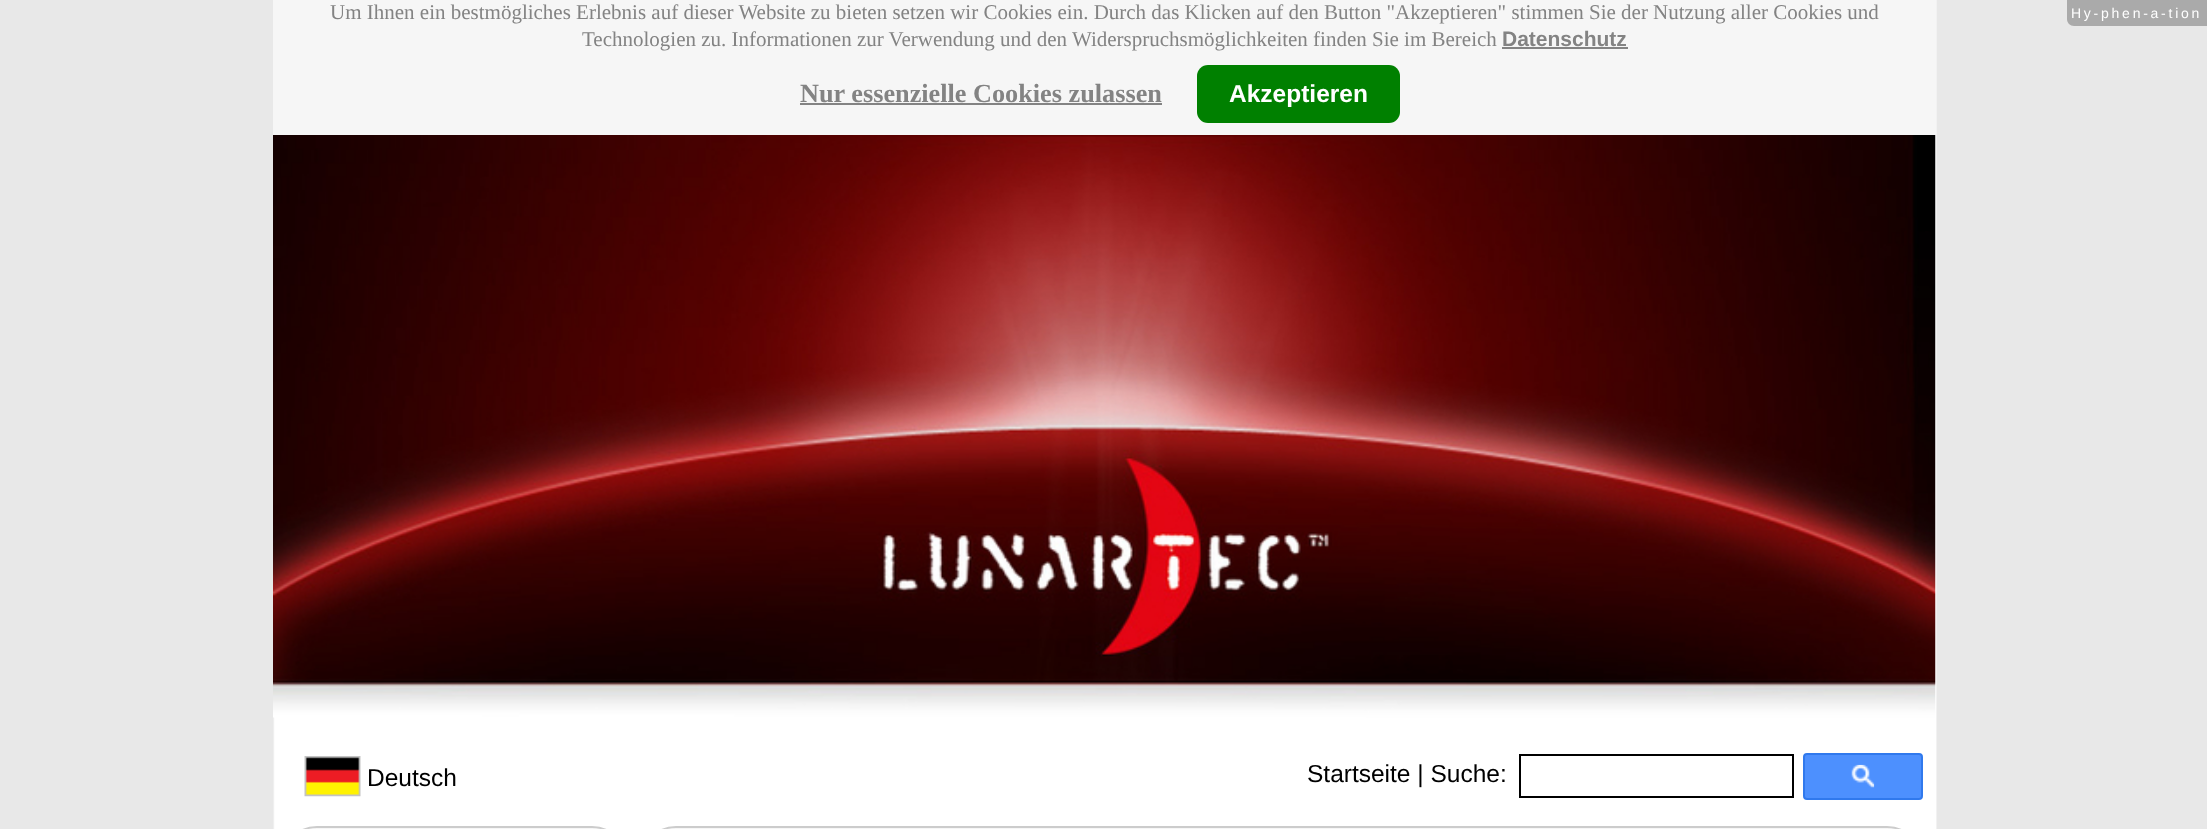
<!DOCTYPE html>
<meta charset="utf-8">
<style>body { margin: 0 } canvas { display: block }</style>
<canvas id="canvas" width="2207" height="829"></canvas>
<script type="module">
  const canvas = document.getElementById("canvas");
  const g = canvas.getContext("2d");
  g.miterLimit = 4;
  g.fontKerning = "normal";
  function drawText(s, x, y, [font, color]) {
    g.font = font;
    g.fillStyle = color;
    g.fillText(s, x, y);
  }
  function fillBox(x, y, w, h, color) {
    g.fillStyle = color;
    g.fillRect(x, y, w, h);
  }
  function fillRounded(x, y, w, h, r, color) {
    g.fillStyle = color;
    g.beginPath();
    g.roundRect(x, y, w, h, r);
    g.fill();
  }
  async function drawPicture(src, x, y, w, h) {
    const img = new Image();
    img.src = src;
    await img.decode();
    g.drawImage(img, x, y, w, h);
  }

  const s1 = ["21px Liberation Serif", "#838383"];
  const s2 = ["bold 21px Liberation Sans", "#838383"];
  const s3 = ["bold 26.25px Liberation Serif", "#838383"];
  const s4 = ["bold 24.5px Liberation Sans", "#FFFFFF"];
  const s5 = ["24.5px Liberation Sans", "#000000"];
  const s6 = ["14px Liberation Sans", "#FFFFFF"];

  fillBox(0, 0, 2207, 829, "#FFFFFF");
  await drawPicture("pic1.png", 0, 0, 2207, 829);
  fillBox(273, 0, 1663, 135, "#F6F6F6");
  drawText("Um Ihnen ein bestmögliches Erlebnis auf dieser Website zu bieten setzen wir Cookies ein. Durch das Klicken auf den Button \"Akzeptieren\" stimmen Sie der Nutzung aller Cookies und", 330, 19, s1);
  drawText("Technologien zu. Informationen zur Verwendung und den Widerspruchsmöglichkeiten finden Sie im Bereich", 582, 46, s1);
  fillBox(1502, 47, 126, 2, "#838383");
  drawText("Datenschutz", 1502, 46, s2);
  drawText("Nur essenzielle Cookies zulassen", 800, 102, s3);
  fillBox(800, 103, 362, 2, "#838383");
  fillRounded(1197, 65, 203, 58, 11, "#008000");
  drawText("Akzeptieren", 1229, 102, s4);
  await drawPicture("pic2.png", 273, 135, 1663, 583);
  await drawPicture("pic3.png", 304, 756, 57, 41);
  drawText("Deutsch", 367, 786, s5);
  drawText("Startseite | Suche:", 1307, 782, s5);
  g.strokeStyle = "#000000";
  g.lineWidth = 2;
  g.strokeRect(1520, 755, 273, 42);
  g.fillStyle = "#4D90FE";
  g.beginPath();
  g.roundRect(1804, 754, 118, 45, 3);
  g.fill();
  g.strokeStyle = "#3079ED";
  g.stroke();
  await drawPicture("pic4.png", 1851, 764, 24, 24);
  g.fillStyle = "#F6F6F6";
  g.beginPath();
  g.moveTo(317, 827);
  g.lineTo(592, 827);
  g.bezierCurveTo(611, 827, 626, 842, 626, 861);
  g.lineTo(626, 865);
  g.lineTo(283, 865);
  g.lineTo(283, 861);
  g.bezierCurveTo(283, 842, 298, 827, 317, 827);
  g.closePath();
  g.fill();
  g.strokeStyle = "#CCCCCC";
  g.stroke();
  g.beginPath();
  g.moveTo(676, 827);
  g.lineTo(1887, 827);
  g.bezierCurveTo(1906, 827, 1921, 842, 1921, 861);
  g.lineTo(1921, 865);
  g.lineTo(642, 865);
  g.lineTo(642, 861);
  g.bezierCurveTo(642, 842, 657, 827, 676, 827);
  g.closePath();
  g.fill();
  g.stroke();
  g.fillStyle = "#AAAAAA";
  g.beginPath();
  g.moveTo(2067, 0);
  g.lineTo(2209, 0);
  g.lineTo(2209, 26);
  g.lineTo(2074, 26);
  g.bezierCurveTo(2070, 26, 2067, 23, 2067, 19);
  g.closePath();
  g.fill();
  g.letterSpacing = "2.75px";
  drawText("Hy-phen-a-tion", 2071, 18, s6);
</script>
